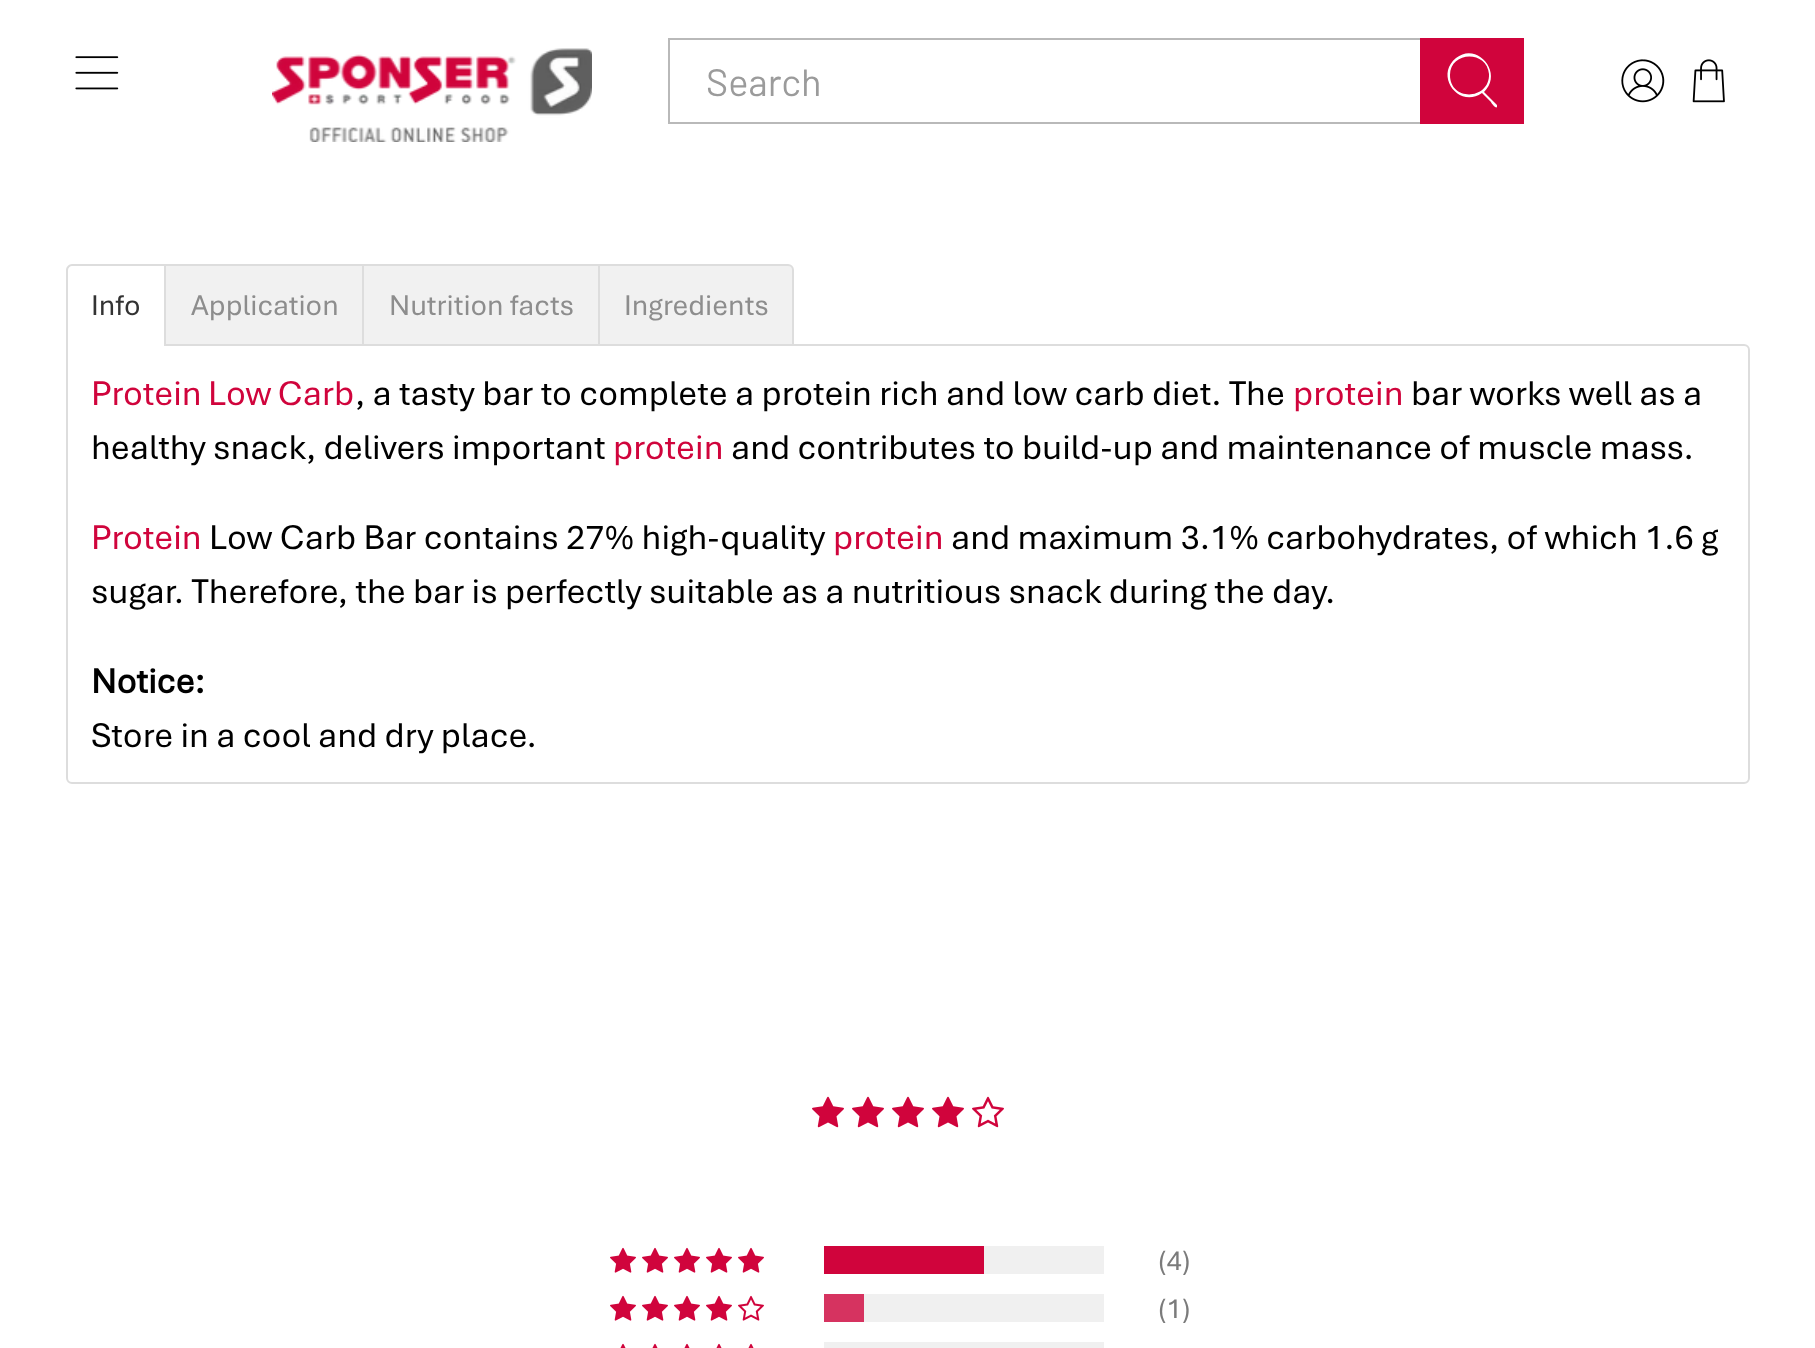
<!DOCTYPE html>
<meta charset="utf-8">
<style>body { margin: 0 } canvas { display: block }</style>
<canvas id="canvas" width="1815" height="1348"></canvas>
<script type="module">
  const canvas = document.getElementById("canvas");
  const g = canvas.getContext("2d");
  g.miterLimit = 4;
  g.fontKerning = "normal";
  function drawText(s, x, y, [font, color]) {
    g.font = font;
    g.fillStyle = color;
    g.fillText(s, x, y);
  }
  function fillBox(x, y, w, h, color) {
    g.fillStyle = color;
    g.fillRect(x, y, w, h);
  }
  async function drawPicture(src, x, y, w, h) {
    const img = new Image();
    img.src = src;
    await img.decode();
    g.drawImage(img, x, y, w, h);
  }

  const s1 = ["38px Barlow", "#9B9B9B"];
  const s2 = ["30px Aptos", "#333333"];
  const s3 = ["30px Aptos", "#8D8D8D"];
  const s4 = ["36px Aptos", "#D0043C"];
  const s5 = ["36px Aptos", "#000000"];
  const s6 = ["bold 36px Aptos", "#000000"];
  const s7 = ["29px Aptos", "#7B7B7B"];

  fillBox(0, 0, 1815, 1348, "#FFFFFF");
  await drawPicture("pic1.png", 75, 56, 44, 34);
  await drawPicture("pic2.png", 272, 48, 320, 94);
  g.strokeStyle = "#B9B9B9";
  g.lineWidth = 2;
  g.strokeRect(669, 39, 752, 84);
  drawText("Search", 706, 96, s1);
  fillBox(1420, 38, 104, 86, "#D0043C");
  g.fillStyle = "#FFFFFF";
  g.beginPath();
  g.moveTo(1497, 105);
  g.lineTo(1484, 92);
  g.bezierCurveTo(1504, 73, 1477, 41, 1456, 58);
  g.bezierCurveTo(1434, 76, 1459, 109, 1482, 93);
  g.lineTo(1491, 102);
  g.bezierCurveTo(1491, 103, 1496, 109, 1497, 107);
  g.closePath();
  g.moveTo(1450, 75);
  g.bezierCurveTo(1450, 51, 1487, 50, 1489, 74);
  g.bezierCurveTo(1490, 100, 1450, 102, 1450, 75);
  g.closePath();
  g.fill();
  await drawPicture("pic3.png", 1621, 59, 44, 44);
  await drawPicture("pic4.png", 1692, 59, 33, 44);
  g.beginPath();
  g.roundRect(67, 345, 1682, 438, [0, 5, 5, 5]);
  g.strokeStyle = "#DDDDDD";
  g.stroke();
  g.beginPath();
  g.roundRect(68, 266, 96, 80, [4, 0, 0, 0]);
  g.fill();
  g.fillStyle = "#DDDDDD";
  g.beginPath();
  g.moveTo(72, 264);
  g.lineTo(166, 264);
  g.lineTo(166, 346);
  g.lineTo(66, 346);
  g.lineTo(66, 270);
  g.bezierCurveTo(66, 267, 69, 264, 72, 264);
  g.closePath();
  g.moveTo(72, 266);
  g.lineTo(164, 266);
  g.lineTo(164, 346);
  g.lineTo(68, 346);
  g.lineTo(68, 270);
  g.bezierCurveTo(68, 268, 70, 266, 72, 266);
  g.closePath();
  g.fill("evenodd");
  drawText("Info", 91, 315, s2);
  fillBox(166, 266, 196, 78, "#F1F1F1");
  fillBox(166, 264, 432, 2, "#DDDDDD");
  drawText("Application", 191, 315, s3);
  fillBox(364, 266, 234, 78, "#F1F1F1");
  fillBox(362, 264, 2, 82, "#DDDDDD");
  drawText("Nutrition facts", 389, 315, s3);
  g.fillStyle = "#F1F1F1";
  g.beginPath();
  g.roundRect(599, 265, 194, 80, [0, 5, 0, 0]);
  g.fill();
  g.stroke();
  drawText("Ingredients", 624, 315, s3);
  g.wordSpacing = "-1px";
  drawText("Protein Low Carb", 91, 405, s4);
  g.wordSpacing = "0px";
  drawText(", a tasty bar to complete a protein rich and low carb diet. The", 355, 405, s5);
  drawText("protein", 1293, 405, s4);
  drawText("bar works well as a", 1411, 405, s5);
  drawText("healthy snack, delivers important", 91, 459, s5);
  drawText("protein", 613, 459, s4);
  drawText("and contributes to build-up and maintenance of muscle mass.", 731, 459, s5);
  drawText("Protein", 91, 549, s4);
  drawText("Low Carb Bar contains 27% high-quality", 209, 549, s5);
  drawText("protein", 833, 549, s4);
  drawText("and maximum 3.1% carbohydrates, of which 1.6 g", 951, 549, s5);
  drawText("sugar. Therefore, the bar is perfectly suitable as a nutritious snack during the day.", 91, 603, s5);
  drawText("Notice:", 91, 693, s6);
  drawText("Store in a cool and dry place.", 91, 747, s5);
  await drawPicture("pic5.png", 812, 1096, 32, 32);
  await drawPicture("pic5.png", 852, 1096, 32, 32);
  await drawPicture("pic5.png", 892, 1096, 32, 32);
  await drawPicture("pic5.png", 932, 1096, 32, 32);
  await drawPicture("pic6.png", 972, 1096, 32, 32);
  await drawPicture("pic7.png", 610, 1247, 26, 26);
  await drawPicture("pic7.png", 642, 1247, 26, 26);
  await drawPicture("pic7.png", 674, 1247, 26, 26);
  await drawPicture("pic7.png", 706, 1247, 26, 26);
  await drawPicture("pic7.png", 738, 1247, 26, 26);
  fillBox(984, 1246, 120, 28, "#F0F0F0");
  fillBox(824, 1246, 160, 28, "#D0043C");
  drawText("(4)", 1158, 1270, s7);
  await drawPicture("pic7.png", 610, 1295, 26, 26);
  await drawPicture("pic7.png", 642, 1295, 26, 26);
  await drawPicture("pic7.png", 674, 1295, 26, 26);
  await drawPicture("pic7.png", 706, 1295, 26, 26);
  await drawPicture("pic8.png", 738, 1295, 26, 26);
  fillBox(864, 1294, 240, 28, "#F0F0F0");
  fillBox(824, 1294, 40, 28, "#D63360");
  drawText("(1)", 1158, 1318, s7);
  await drawPicture("pic9.png", 620, 1343, 6, 5);
  await drawPicture("pic9.png", 652, 1343, 6, 5);
  await drawPicture("pic9.png", 684, 1343, 6, 5);
  await drawPicture("pic10.png", 716, 1343, 6, 5);
  await drawPicture("pic10.png", 748, 1343, 6, 5);
  fillBox(824, 1342, 280, 6, "#F0F0F0");
</script>
